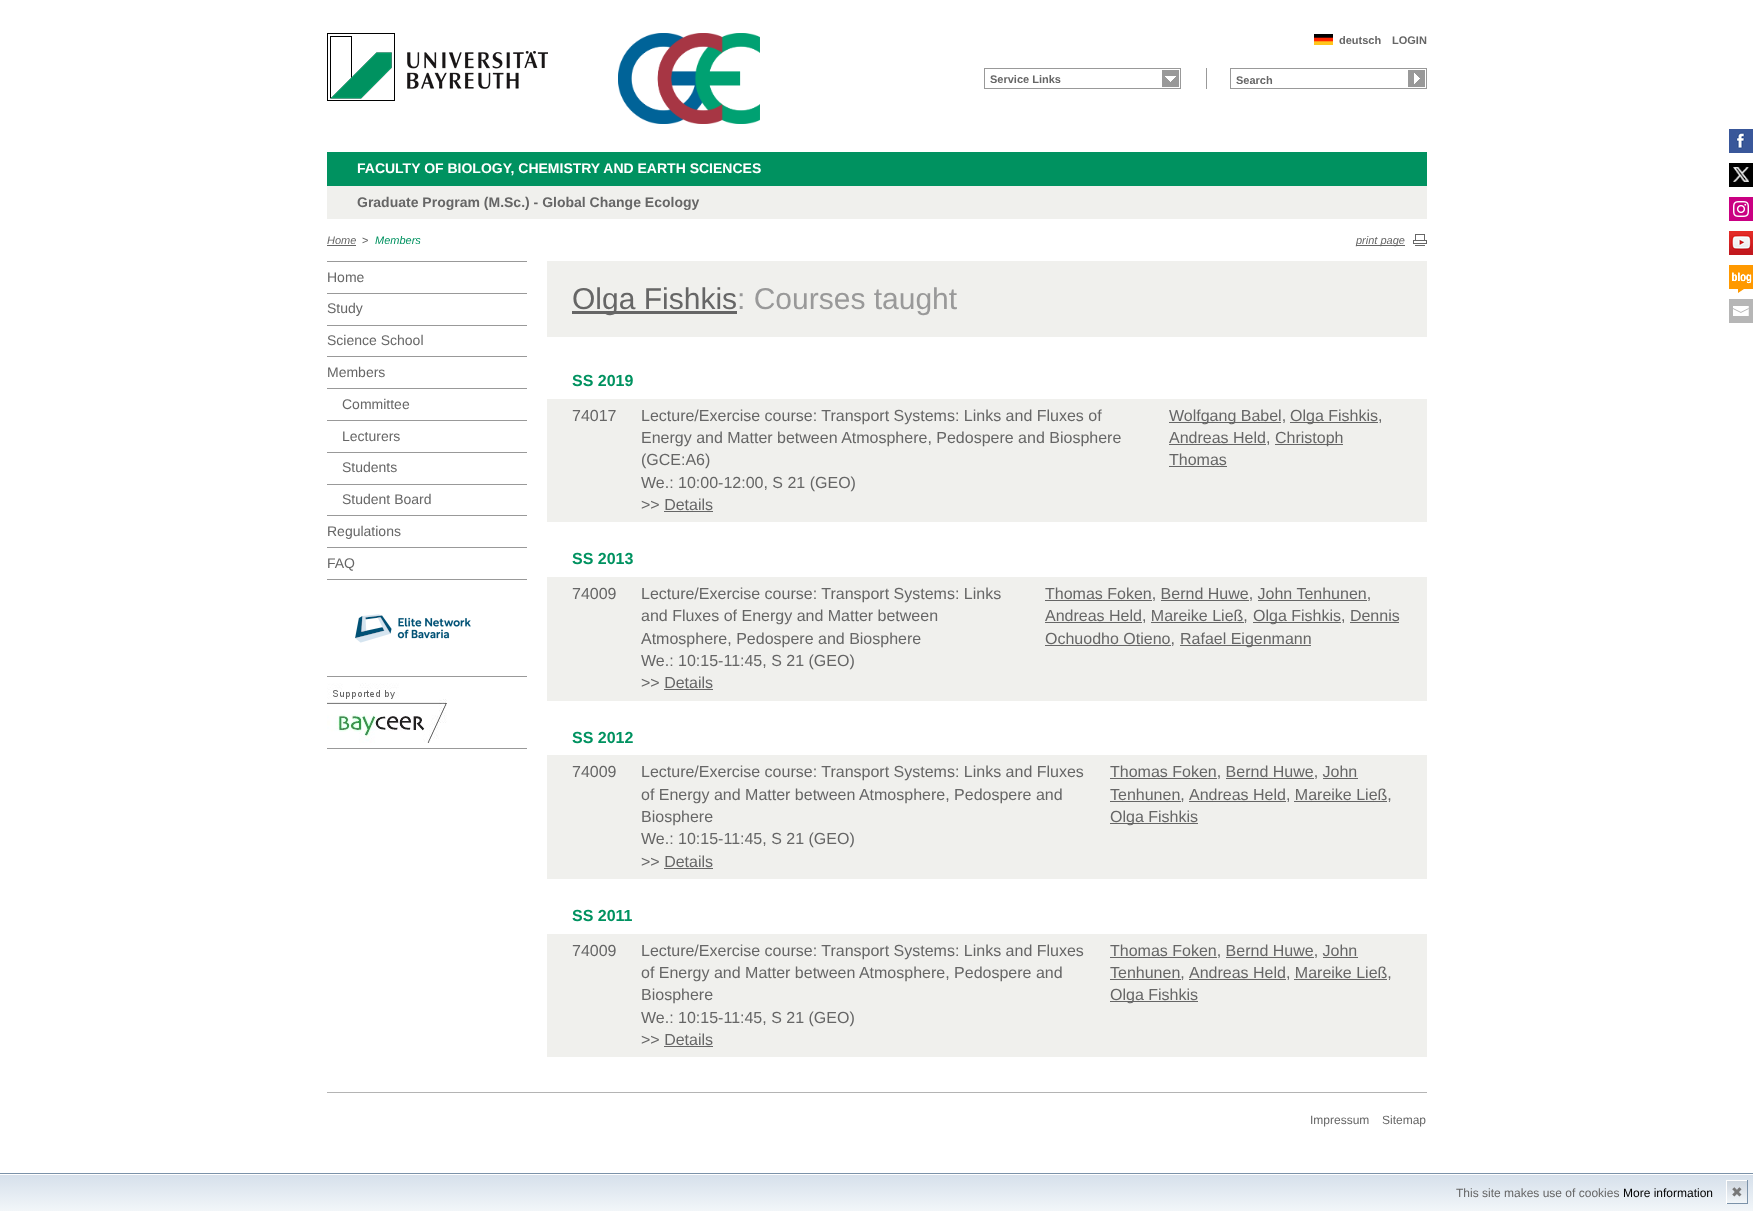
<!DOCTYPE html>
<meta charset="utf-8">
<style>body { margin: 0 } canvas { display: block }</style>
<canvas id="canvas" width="1753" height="1211"></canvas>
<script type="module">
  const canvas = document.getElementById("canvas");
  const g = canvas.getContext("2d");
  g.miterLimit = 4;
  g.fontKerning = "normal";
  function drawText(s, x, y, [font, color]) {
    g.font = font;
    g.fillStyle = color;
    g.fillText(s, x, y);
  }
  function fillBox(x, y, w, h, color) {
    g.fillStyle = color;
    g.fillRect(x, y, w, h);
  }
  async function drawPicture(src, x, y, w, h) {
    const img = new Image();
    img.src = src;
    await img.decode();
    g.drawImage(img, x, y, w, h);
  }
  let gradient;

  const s1 = ["bold 11px Liberation Sans", "#666666"];
  const s2 = ["bold 14px Liberation Sans", "#FFFFFF"];
  const s3 = ["bold 14px Liberation Sans", "#666666"];
  const s4 = ["italic 11px Liberation Sans", "#666666"];
  const s5 = ["11px Liberation Sans", "#666666"];
  const s6 = ["italic 11px Liberation Sans", "#009260"];
  const s7 = ["14px Liberation Sans", "#666666"];
  const s8 = ["30px Liberation Sans", "#666666"];
  const s9 = ["30px Liberation Sans", "#999999"];
  const s10 = ["bold 16px Liberation Sans", "#009260"];
  const s11 = ["16px Liberation Sans", "#666666"];
  const s12 = ["12px Liberation Sans", "#666666"];
  const s13 = ["12px Liberation Sans", "#000000"];
  const s14 = ["14px DejaVu Sans", "#777777"];

  fillBox(0, 0, 1753, 1211, "#FFFFFF");
  await drawPicture("pic1.png", 327, 33, 221, 68);
  await drawPicture("pic2.png", 618, 33, 142, 91);
  await drawPicture("pic3.png", 1314, 34, 19, 11);
  drawText("deutsch", 1339, 44, s1);
  drawText("LOGIN", 1392, 44, s1);
  await drawPicture("pic4.png", 1162, 70, 17, 17);
  g.strokeStyle = "#999999";
  g.strokeRect(984.5, 68.5, 196, 20);
  drawText("Service Links", 990, 83, s1);
  fillBox(1206, 68, 1, 21, "#999999");
  g.strokeRect(1230.5, 68.5, 196, 20);
  drawText("Search", 1236, 84, s1);
  fillBox(1408, 70, 17, 17, "#999999");
  await drawPicture("pic5.png", 1414, 73, 6, 11);
  fillBox(327, 152, 1100, 34, "#009260");
  drawText("FACULTY OF BIOLOGY, CHEMISTRY AND EARTH SCIENCES", 357, 173, s2);
  fillBox(327, 186, 1100, 33, "#F0F0ED");
  drawText("Graduate Program (M.Sc.) - Global Change Ecology", 357, 207, s3);
  drawText("Home", 327, 244, s4);
  fillBox(327, 245, 29, 1, "#666666");
  drawText(">", 362, 244, s5);
  drawText("Members", 375, 244, s6);
  await drawPicture("pic6.png", 1413, 234, 14, 12);
  fillBox(1356, 245, 49, 1, "#666666");
  drawText("print page", 1356, 244, s4);
  fillBox(1729, 129, 24, 24, "#39579A");
  await drawPicture("pic7.png", 1736, 132, 9, 17);
  await drawPicture("pic8.png", 1729, 163, 24, 24);
  fillBox(1729, 197, 24, 24, "#CA0082");
  await drawPicture("pic9.png", 1733, 201, 16, 16);
  await drawPicture("pic10.png", 1729, 231, 24, 24);
  await drawPicture("pic11.png", 1729, 265, 24, 28);
  fillBox(1729, 299, 24, 24, "#B6B6B6");
  await drawPicture("pic12.png", 1733, 306, 16, 10);
  fillBox(327, 748, 200, 1, "#999999");
  fillBox(327, 261, 200, 1, "#999999");
  drawText("Home", 327, 282, s7);
  fillBox(327, 293, 200, 1, "#999999");
  drawText("Study", 327, 313, s7);
  fillBox(327, 325, 200, 1, "#999999");
  drawText("Science School", 327, 345, s7);
  fillBox(327, 356, 200, 1, "#999999");
  drawText("Members", 327, 377, s7);
  fillBox(327, 388, 200, 1, "#999999");
  drawText("Committee", 342, 409, s7);
  fillBox(327, 420, 200, 1, "#999999");
  drawText("Lecturers", 342, 441, s7);
  fillBox(327, 452, 200, 1, "#999999");
  drawText("Students", 342, 472, s7);
  fillBox(327, 484, 200, 1, "#999999");
  drawText("Student Board", 342, 504, s7);
  fillBox(327, 515, 200, 1, "#999999");
  drawText("Regulations", 327, 536, s7);
  fillBox(327, 547, 200, 1, "#999999");
  drawText("FAQ", 327, 568, s7);
  fillBox(327, 579, 200, 1, "#999999");
  await drawPicture("pic13.png", 355, 614, 116, 29);
  fillBox(327, 676, 200, 1, "#999999");
  await drawPicture("pic14.png", 327, 683, 120, 60);
  fillBox(547, 261, 880, 76, "#F0F0ED");
  fillBox(572, 311, 165, 3, "#666666");
  drawText("Olga Fishkis", 572, 309, s8);
  drawText(": Courses taught", 737, 309, s9);
  drawText("SS 2019", 572, 386, s10);
  fillBox(547, 399, 880, 123, "#F0F0ED");
  drawText("74017", 572, 421, s11);
  drawText("Lecture/Exercise course: Transport Systems: Links and Fluxes of", 641, 421, s11);
  drawText("Energy and Matter between Atmosphere, Pedospere and Biosphere", 641, 443, s11);
  drawText("(GCE:A6)", 641, 465, s11);
  drawText("We.: 10:00-12:00, S 21 (GEO)", 641, 488, s11);
  drawText(">> Details", 641, 510, s11);
  fillBox(664, 511, 49, 1, "#666666");
  fillBox(1169, 422, 112, 1, "#666666");
  drawText("Wolfgang Babel,", 1169, 421, s11);
  fillBox(1290, 422, 88, 1, "#666666");
  drawText("Olga Fishkis,", 1290, 421, s11);
  fillBox(1169, 444, 97, 1, "#666666");
  drawText("Andreas Held,", 1169, 443, s11);
  fillBox(1275, 444, 68, 1, "#666666");
  drawText("Christoph", 1275, 443, s11);
  drawText("Thomas", 1169, 465, s11);
  fillBox(1169, 466, 58, 1, "#666666");
  drawText("SS 2013", 572, 564, s10);
  fillBox(547, 577, 880, 124, "#F0F0ED");
  drawText("74009", 572, 599, s11);
  drawText("Lecture/Exercise course: Transport Systems: Links", 641, 599, s11);
  drawText("and Fluxes of Energy and Matter between", 641, 621, s11);
  drawText("Atmosphere, Pedospere and Biosphere", 641, 644, s11);
  drawText("We.: 10:15-11:45, S 21 (GEO)", 641, 666, s11);
  drawText(">> Details", 641, 688, s11);
  fillBox(664, 689, 49, 1, "#666666");
  fillBox(1045, 600, 107, 1, "#666666");
  drawText("Thomas Foken, Bernd Huwe, John Tenhunen,", 1045, 599, s11);
  fillBox(1161, 600, 88, 1, "#666666");
  fillBox(1258, 600, 109, 1, "#666666");
  fillBox(1045, 622, 97, 1, "#666666");
  drawText("Andreas Held, Mareike Ließ,", 1045, 621, s11);
  fillBox(1253, 622, 88, 1, "#666666");
  drawText("Olga Fishkis, Dennis", 1253, 621, s11);
  fillBox(1151, 622, 93, 1, "#666666");
  fillBox(1045, 645, 126, 1, "#666666");
  drawText("Ochuodho Otieno,", 1045, 644, s11);
  fillBox(1350, 622, 49, 1, "#666666");
  fillBox(1180, 645, 131, 1, "#666666");
  drawText("Rafael Eigenmann", 1180, 644, s11);
  drawText("SS 2012", 572, 743, s10);
  fillBox(547, 755, 880, 124, "#F0F0ED");
  drawText("74009", 572, 777, s11);
  drawText("Lecture/Exercise course: Transport Systems: Links and Fluxes", 641, 777, s11);
  drawText("of Energy and Matter between Atmosphere, Pedospere and", 641, 800, s11);
  drawText("Biosphere", 641, 822, s11);
  drawText("We.: 10:15-11:45, S 21 (GEO)", 641, 844, s11);
  drawText(">> Details", 641, 867, s11);
  fillBox(664, 868, 49, 1, "#666666");
  fillBox(1110, 778, 107, 1, "#666666");
  drawText("Thomas Foken, Bernd Huwe, John", 1110, 777, s11);
  fillBox(1226, 778, 88, 1, "#666666");
  fillBox(1110, 801, 71, 1, "#666666");
  drawText("Tenhunen,", 1110, 800, s11);
  fillBox(1323, 778, 35, 1, "#666666");
  fillBox(1189, 801, 97, 1, "#666666");
  drawText("Andreas Held, Mareike Ließ,", 1189, 800, s11);
  fillBox(1294, 801, 93, 1, "#666666");
  fillBox(1110, 823, 88, 1, "#666666");
  drawText("Olga Fishkis", 1110, 822, s11);
  drawText("SS 2011", 572, 921, s10);
  fillBox(547, 934, 880, 123, "#F0F0ED");
  drawText("74009", 572, 956, s11);
  drawText("Lecture/Exercise course: Transport Systems: Links and Fluxes", 641, 956, s11);
  drawText("of Energy and Matter between Atmosphere, Pedospere and", 641, 978, s11);
  drawText("Biosphere", 641, 1000, s11);
  drawText("We.: 10:15-11:45, S 21 (GEO)", 641, 1023, s11);
  drawText(">> Details", 641, 1045, s11);
  fillBox(664, 1046, 49, 1, "#666666");
  fillBox(1110, 957, 107, 1, "#666666");
  drawText("Thomas Foken, Bernd Huwe, John", 1110, 956, s11);
  fillBox(1226, 957, 88, 1, "#666666");
  fillBox(1110, 979, 71, 1, "#666666");
  drawText("Tenhunen,", 1110, 978, s11);
  fillBox(1323, 957, 35, 1, "#666666");
  fillBox(1189, 979, 97, 1, "#666666");
  drawText("Andreas Held, Mareike Ließ,", 1189, 978, s11);
  fillBox(1294, 979, 93, 1, "#666666");
  fillBox(1110, 1001, 88, 1, "#666666");
  drawText("Olga Fishkis", 1110, 1000, s11);
  fillBox(327, 1092, 1100, 1, "#B4B4B4");
  drawText("Impressum", 1310, 1124, s12);
  drawText("Sitemap", 1382, 1124, s12);
  gradient = g.createLinearGradient(877, 1175, 877, 1211);
  gradient.addColorStop(0, "#D6E0EB");
  gradient.addColorStop(1, "#F2F6F9");
  g.fillStyle = gradient;
  g.fillRect(0, 1175, 1753, 36);
  g.strokeStyle = "#7B92A9";
  g.strokeRect(-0.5, 1173.5, 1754, 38);
  drawText("This site makes use of cookies", 1456, 1197, s12);
  drawText("More information", 1623, 1197, s13);
  gradient = g.createLinearGradient(1737, 1181, 1737, 1203);
  gradient.addColorStop(0, "#CED6DF");
  gradient.addColorStop(1, "#F2F6F9");
  g.fillStyle = gradient;
  g.fillRect(1727, 1181, 20, 22);
  fillBox(1726, 1180, 22, 1, "#FFFFFF");
  fillBox(1747, 1180, 1, 24, "#7B92A9");
  fillBox(1726, 1203, 22, 1, "#7B92A9");
  fillBox(1726, 1180, 1, 24, "#FFFFFF");
  drawText("✖", 1731, 1197, s14);
</script>
